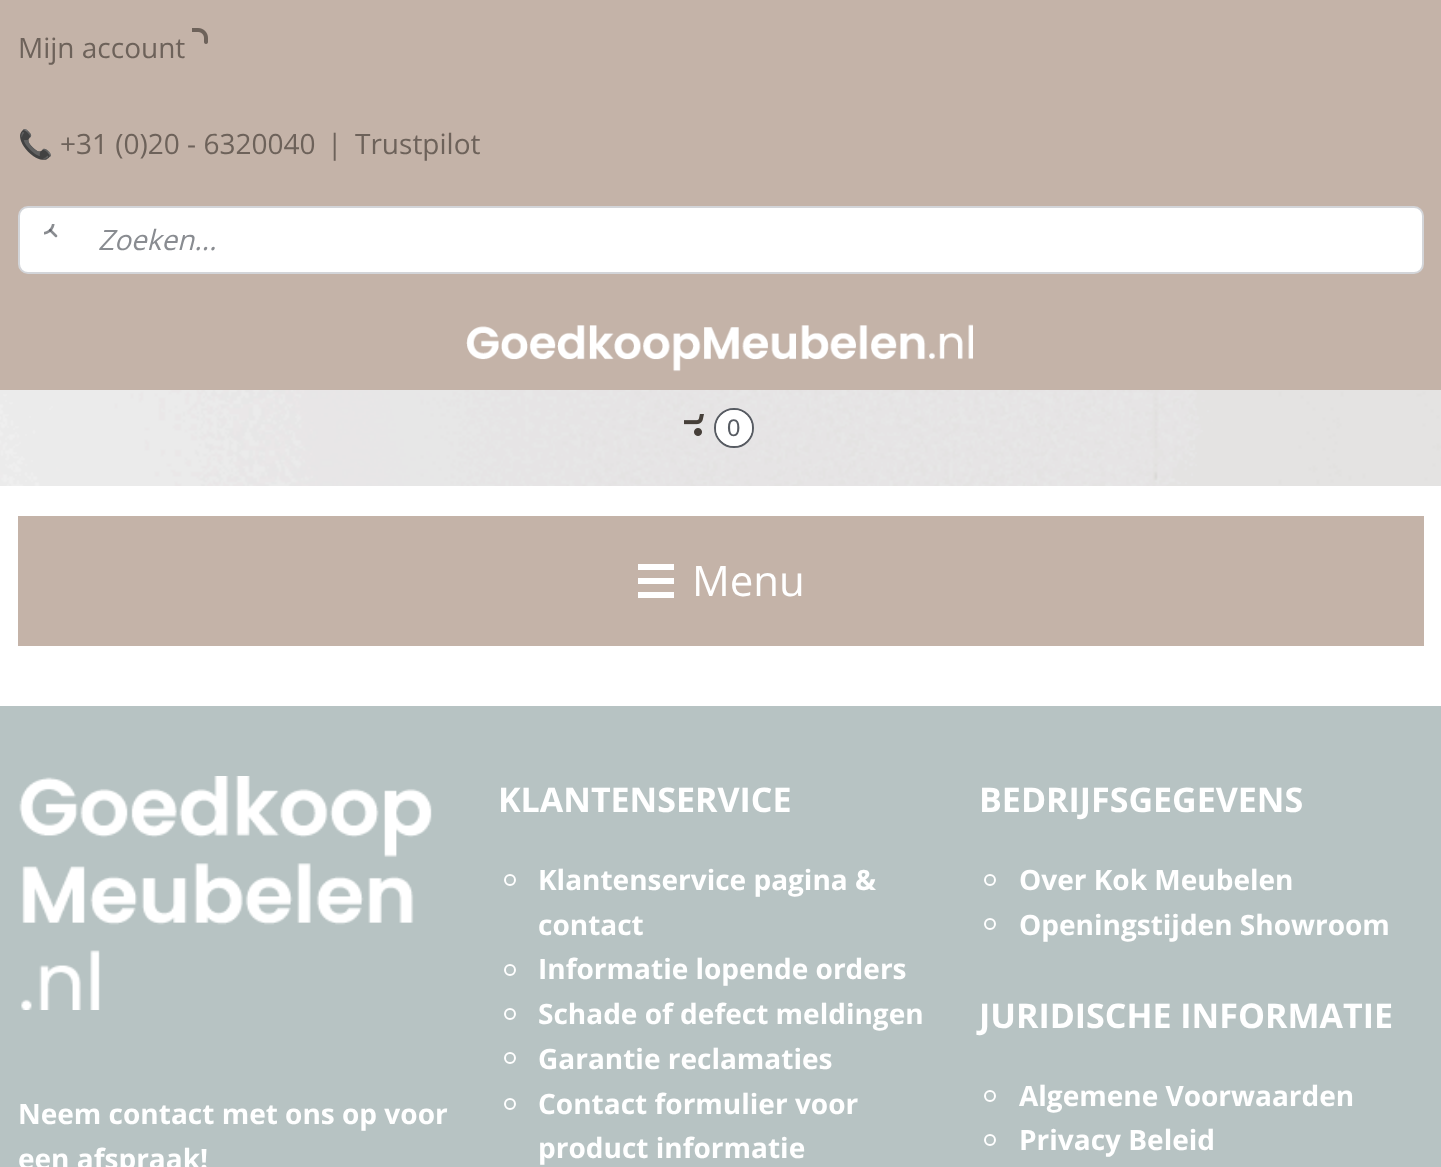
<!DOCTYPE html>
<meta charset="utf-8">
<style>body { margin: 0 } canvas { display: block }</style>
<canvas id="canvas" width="1441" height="1167"></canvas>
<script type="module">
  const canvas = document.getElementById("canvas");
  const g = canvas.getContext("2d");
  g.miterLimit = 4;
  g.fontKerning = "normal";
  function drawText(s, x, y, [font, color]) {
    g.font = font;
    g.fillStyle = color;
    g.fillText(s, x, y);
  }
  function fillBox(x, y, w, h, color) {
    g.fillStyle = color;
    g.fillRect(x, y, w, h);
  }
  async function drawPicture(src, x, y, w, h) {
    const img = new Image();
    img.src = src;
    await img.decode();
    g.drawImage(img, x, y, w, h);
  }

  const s1 = ["28px Open Sans", "#6D625A"];
  const s2 = ["28px Noto Color Emoji", "#6D625A"];
  const s3 = ["italic 28px Open Sans", "#898C91"];
  const s4 = ["24px Liberation Sans", "#575B62"];
  const s5 = ["42px Open Sans", "#FFFFFF"];
  const s6 = ["bold 28px Open Sans", "#FFFFFF"];
  const s7 = ["bold 34px Open Sans", "#FFFFFF"];

  fillBox(0, 0, 1441, 1167, "#C4B3A8");
  drawText("Mijn account", 18, 58, s1);
  await drawPicture("pic1.png", 192, 28, 16, 16);
  drawText("📞", 18, 154, s2);
  drawText("+31 (0)20 - 6320040", 60, 154, s1);
  drawText("|", 327, 154, s1);
  drawText("Trustpilot", 355, 154, s1);
  g.fillStyle = "#FFFFFF";
  g.beginPath();
  g.roundRect(19, 207, 1404, 66, 9);
  g.fill();
  g.strokeStyle = "#D3D5D9";
  g.lineWidth = 2;
  g.stroke();
  await drawPicture("pic2.png", 44, 224, 14, 14);
  drawText("Zoeken...", 98, 250, s3);
  await drawPicture("pic3.png", 466, 324, 507, 48);
  await drawPicture("pic4.png", 0, 390, 1441, 96);
  await drawPicture("pic5.png", 684, 414, 20, 22);
  g.beginPath();
  g.arc(734, 428, 19, 0, Math.PI * 2);
  g.strokeStyle = "#575B62";
  g.stroke();
  g.fillStyle = "#FFFFFF";
  g.beginPath();
  g.arc(734, 428, 18, 0, Math.PI * 2);
  g.fill();
  drawText("0", 727, 436, s4);
  fillBox(0, 486, 1441, 220, "#FFFFFF");
  fillBox(18, 516, 1406, 130, "#C4B3A8");
  fillBox(638, 578, 36, 6, "#FFFFFF");
  fillBox(638, 564, 36, 6, "#FFFFFF");
  fillBox(638, 592, 36, 6, "#FFFFFF");
  drawText("Menu", 692, 596, s5);
  fillBox(0, 706, 1441, 461, "#B7C3C3");
  await drawPicture("pic6.png", 19, 776, 413, 234);
  drawText("Neem contact met ons op voor", 18, 1124, s6);
  drawText("een afspraak!", 18, 1169, s6);
  drawText("KLANTENSERVICE", 498, 812, s7);
  g.beginPath();
  g.arc(510, 880, 5, 0, Math.PI * 2);
  g.strokeStyle = "#FFFFFF";
  g.stroke();
  drawText("Klantenservice pagina &", 538, 890, s6);
  drawText("contact", 538, 935, s6);
  g.beginPath();
  g.arc(510, 970, 5, 0, Math.PI * 2);
  g.stroke();
  drawText("Informatie lopende orders", 538, 979, s6);
  g.beginPath();
  g.arc(510, 1014, 5, 0, Math.PI * 2);
  g.stroke();
  drawText("Schade of defect meldingen", 538, 1024, s6);
  g.beginPath();
  g.arc(510, 1058, 5, 0, Math.PI * 2);
  g.stroke();
  drawText("Garantie reclamaties", 538, 1069, s6);
  g.beginPath();
  g.arc(510, 1104, 5, 0, Math.PI * 2);
  g.stroke();
  drawText("Contact formulier voor", 538, 1114, s6);
  drawText("product informatie", 538, 1158, s6);
  drawText("BEDRIJFSGEGEVENS", 979, 812, s7);
  g.beginPath();
  g.arc(990, 880, 5, 0, Math.PI * 2);
  g.stroke();
  drawText("Over Kok Meubelen", 1019, 890, s6);
  g.beginPath();
  g.arc(990, 924, 5, 0, Math.PI * 2);
  g.stroke();
  drawText("Openingstijden Showroom", 1019, 935, s6);
  drawText("JURIDISCHE INFORMATIE", 979, 1028, s7);
  g.beginPath();
  g.arc(990, 1096, 5, 0, Math.PI * 2);
  g.stroke();
  drawText("Algemene Voorwaarden", 1019, 1106, s6);
  g.beginPath();
  g.arc(990, 1140, 5, 0, Math.PI * 2);
  g.stroke();
  drawText("Privacy Beleid", 1019, 1150, s6);
</script>
